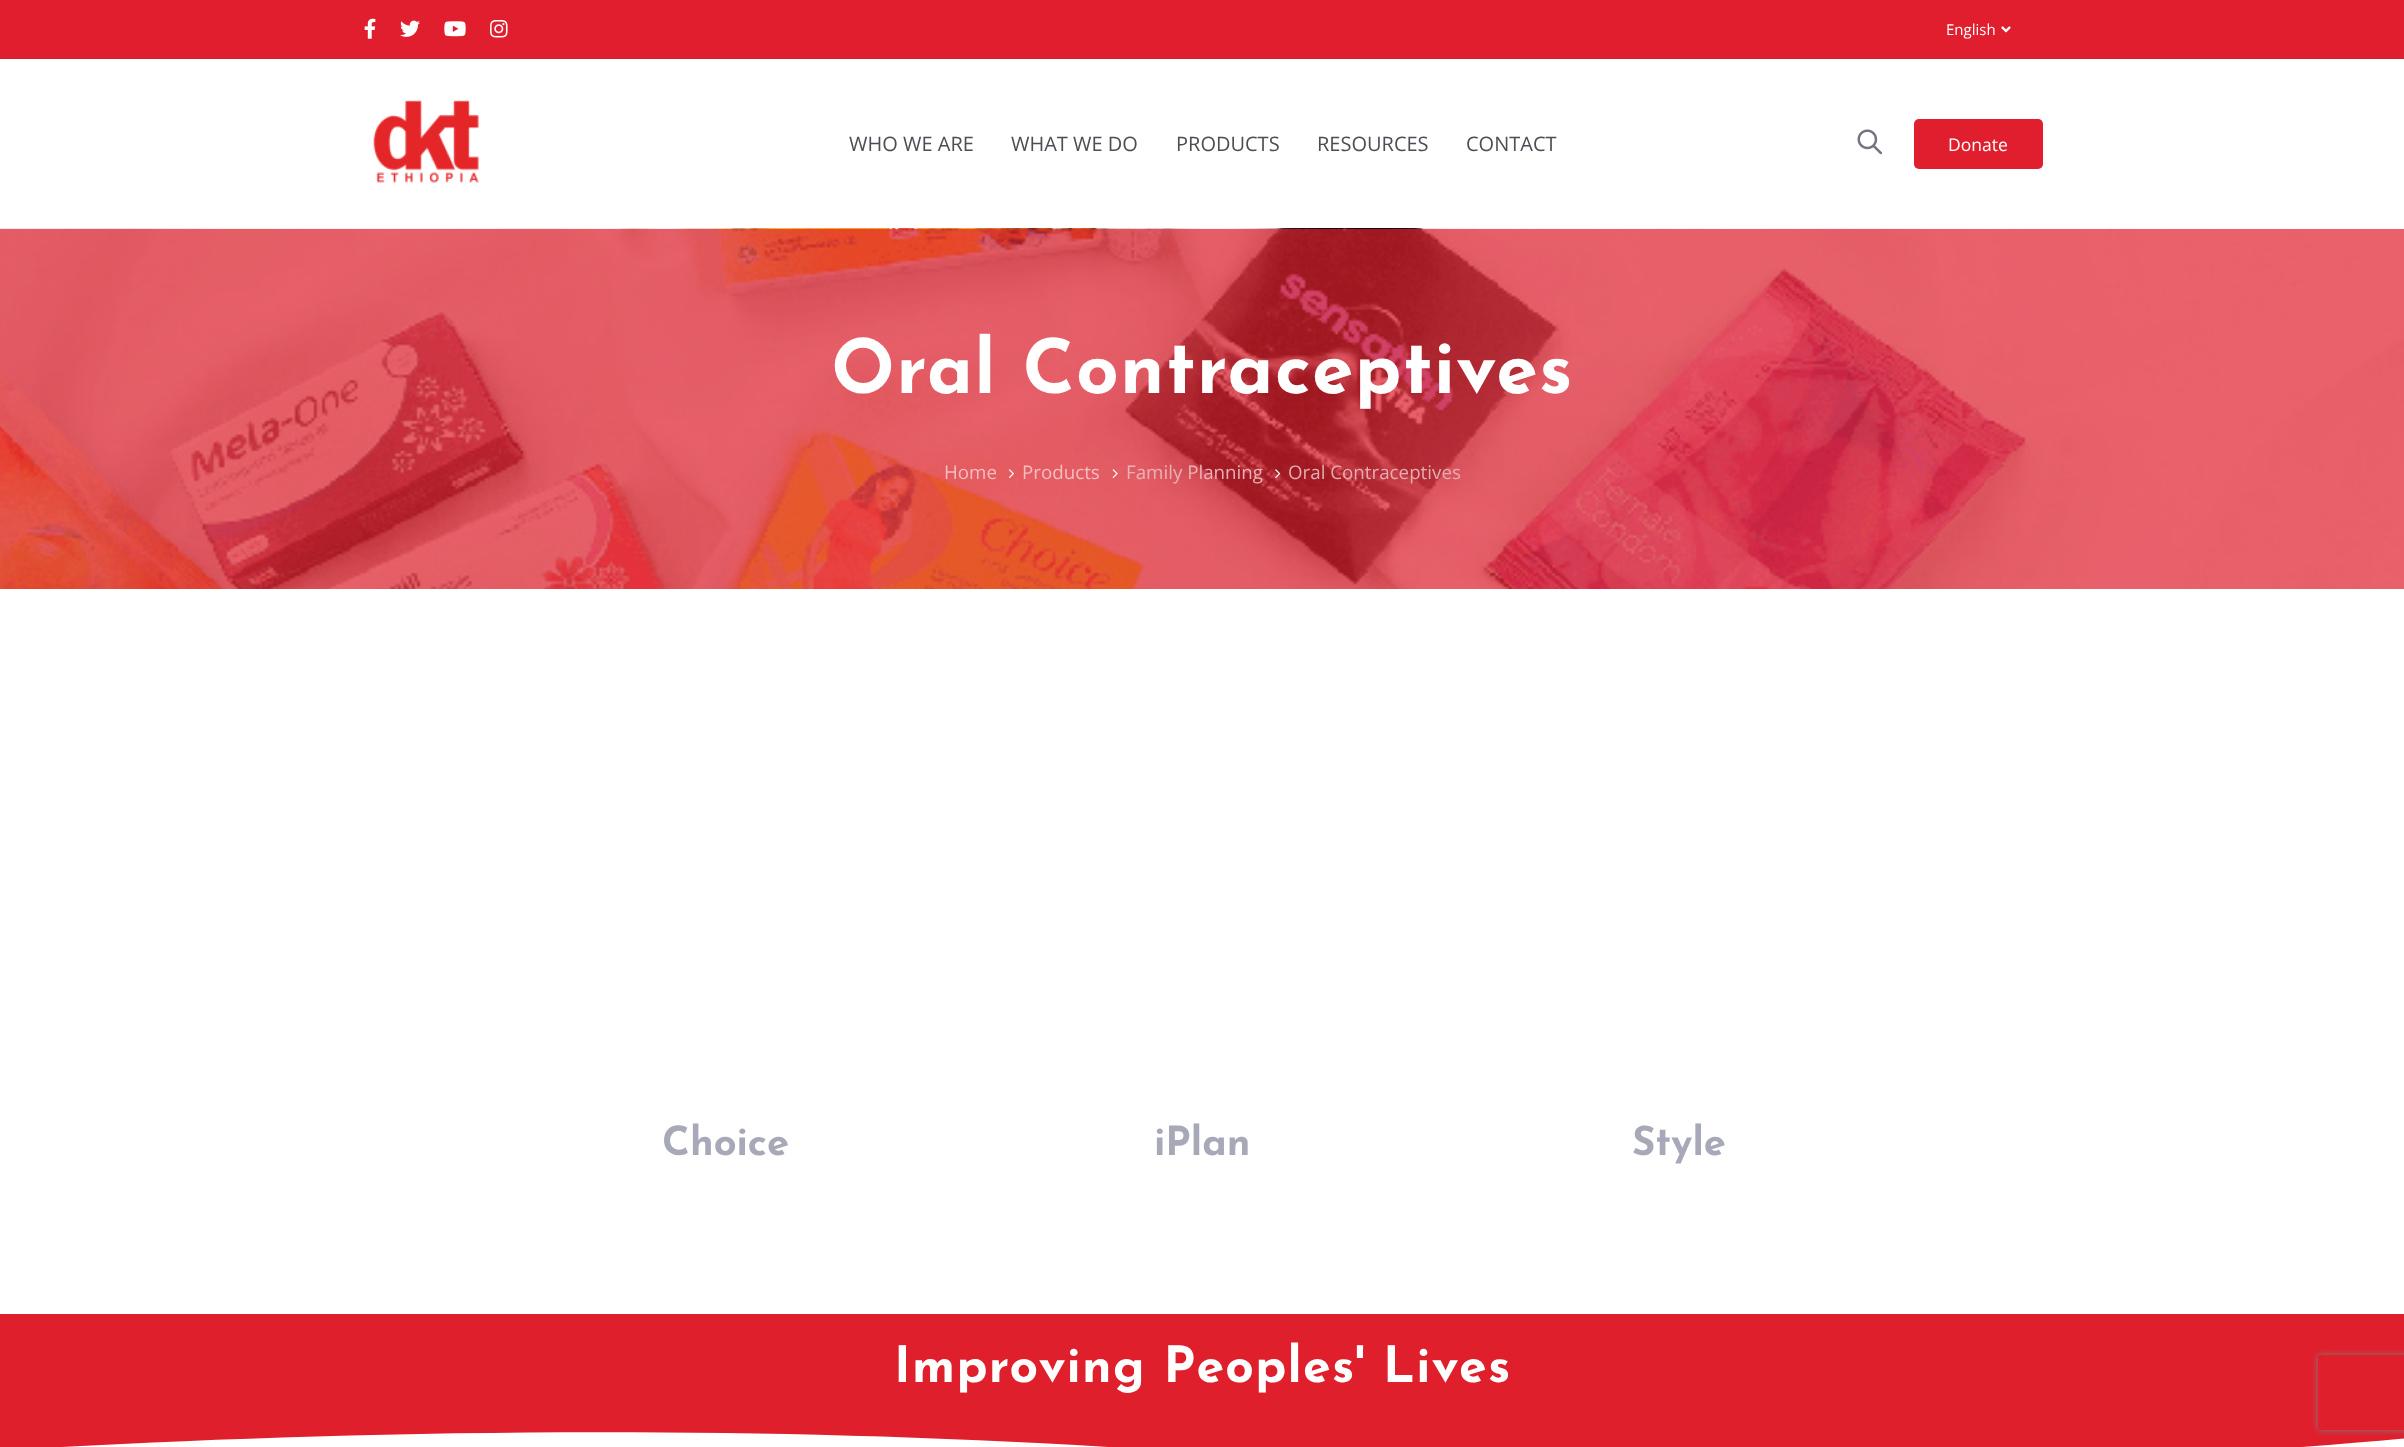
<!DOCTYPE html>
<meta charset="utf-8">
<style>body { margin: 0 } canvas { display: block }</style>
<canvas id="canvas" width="2404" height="1447"></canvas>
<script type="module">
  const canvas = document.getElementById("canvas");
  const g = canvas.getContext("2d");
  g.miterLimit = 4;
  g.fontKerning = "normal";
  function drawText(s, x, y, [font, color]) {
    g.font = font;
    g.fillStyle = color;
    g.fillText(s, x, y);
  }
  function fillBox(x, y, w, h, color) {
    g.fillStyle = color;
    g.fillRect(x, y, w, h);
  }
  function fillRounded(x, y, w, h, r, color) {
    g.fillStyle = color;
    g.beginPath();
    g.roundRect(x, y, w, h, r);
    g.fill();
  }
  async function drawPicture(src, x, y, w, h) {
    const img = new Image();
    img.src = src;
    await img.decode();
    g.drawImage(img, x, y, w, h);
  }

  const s1 = ["15px Open Sans", "#FFFFFF"];
  const s2 = ["20px Open Sans", "#4D4D55"];
  const s3 = ["17.5px Open Sans", "#FFFFFF"];
  const s4 = ["bold 75px Josefin Sans", "#FFFFFF"];
  const s5 = ["18.75px Open Sans", "#F4BEBF"];
  const s6 = ["18.75px Open Sans", "#E8B2B6"];
  const s7 = ["18.75px Open Sans", "#E3ACB0"];
  const s8 = ["bold 40px Josefin Sans", "#A7A9B8"];
  const s9 = ["bold 50px Josefin Sans", "#FFFFFF"];

  fillBox(0, 0, 2404, 1447, "#FFFFFF");
  fillBox(0, 0, 2404, 58, "#E11E2E");
  fillBox(0, 58, 2404, 1, "#D21F2E");
  await drawPicture("pic1.png", 364, 18, 12, 21);
  await drawPicture("pic2.png", 400, 20, 20, 17);
  await drawPicture("pic3.png", 444, 21, 22, 16);
  await drawPicture("pic4.png", 490, 20, 18, 18);
  drawText("English", 1946, 35, s1);
  await drawPicture("pic5.png", 2001, 26, 10, 7);
  await drawPicture("pic6.png", 373, 100, 106, 83);
  drawText("WHO WE ARE", 849, 151, s2);
  drawText("WHAT WE DO", 1011, 151, s2);
  drawText("PRODUCTS", 1176, 151, s2);
  drawText("RESOURCES", 1317, 151, s2);
  drawText("CONTACT", 1466, 151, s2);
  await drawPicture("pic7.png", 1857, 129, 25, 26);
  fillRounded(1914, 119, 129, 50, 5, "#E11E2E");
  drawText("Donate", 1948, 151, s3);
  await drawPicture("pic8.png", 0, 228, 2404, 361);
  g.letterSpacing = "1.25px";
  drawText("Oral Contraceptives", 831, 393, s4);
  g.letterSpacing = "0px";
  drawText("Home", 944, 479, s5);
  await drawPicture("pic9.png", 1008, 469, 6, 9);
  drawText("Products", 1022, 479, s5);
  await drawPicture("pic10.png", 1112, 469, 6, 9);
  drawText("Family Planning", 1126, 479, s6);
  await drawPicture("pic11.png", 1275, 469, 6, 9);
  drawText("Oral Contraceptives", 1288, 479, s7);
  drawText("Choice", 662, 1155, s8);
  drawText("iPlan", 1154, 1155, s8);
  drawText("Style", 1632, 1155, s8);
  fillBox(0, 1314, 2404, 133, "#E01F2C");
  g.letterSpacing = "1.25px";
  drawText("Improving Peoples' Lives", 894, 1382, s9);
  g.beginPath();
  g.moveTo(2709, 1403);
  g.bezierCurveTo(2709, 1403, 2024, 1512, 1184, 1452);
  g.bezierCurveTo(344, 1392, -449, 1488, -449, 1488);
  g.lineTo(-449, 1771);
  g.lineTo(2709, 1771);
  g.lineTo(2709, 1403);
  g.fill();
  g.save();
  g.beginPath();
  g.moveTo(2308, 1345);
  g.lineTo(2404, 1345);
  g.lineTo(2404, 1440);
  g.lineTo(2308, 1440);
  g.closePath();
  g.moveTo(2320.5, 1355);
  g.lineTo(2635.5, 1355);
  g.bezierCurveTo(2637, 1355, 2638, 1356, 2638, 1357.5);
  g.lineTo(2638, 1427.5);
  g.bezierCurveTo(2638, 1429, 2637, 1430, 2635.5, 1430);
  g.lineTo(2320.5, 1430);
  g.bezierCurveTo(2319, 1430, 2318, 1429, 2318, 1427.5);
  g.lineTo(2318, 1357.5);
  g.bezierCurveTo(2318, 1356, 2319, 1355, 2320.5, 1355);
  g.closePath();
  g.clip("evenodd");
  g.fillStyle = "#808080";
  g.filter = "blur(3px)";
  g.beginPath();
  g.roundRect(2318, 1355, 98, 75, 2.5);
  g.fill();
  g.filter = "none";
  g.restore();
</script>
